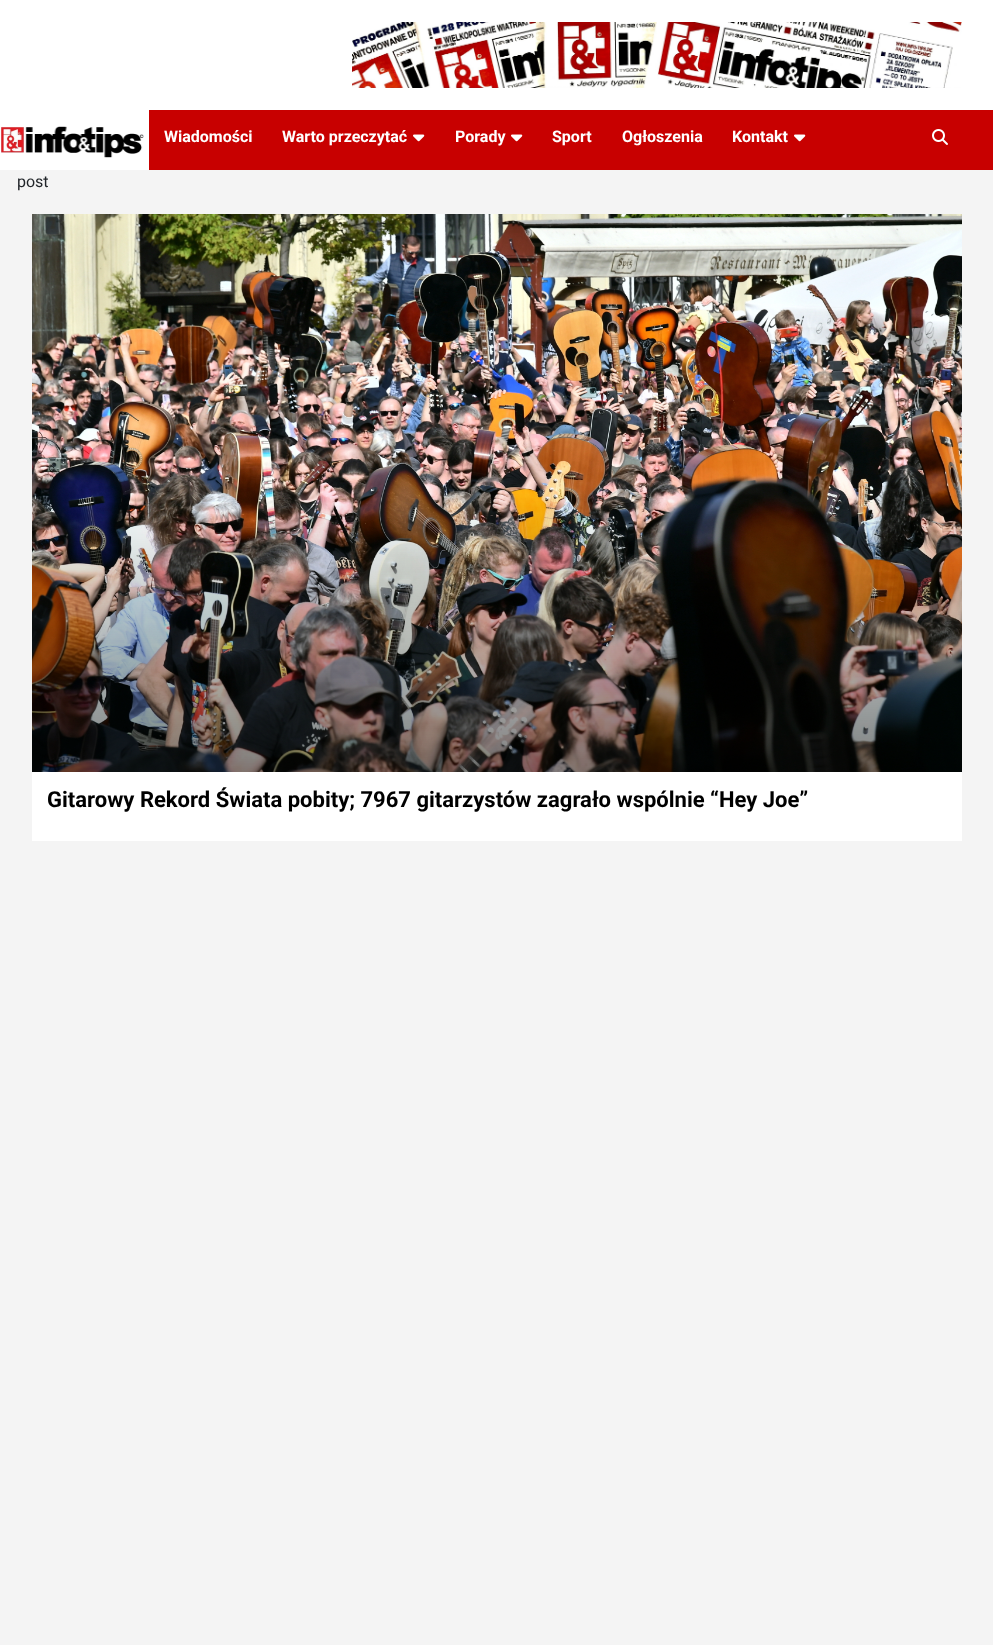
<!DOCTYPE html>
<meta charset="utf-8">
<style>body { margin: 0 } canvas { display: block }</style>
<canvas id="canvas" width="993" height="1645"></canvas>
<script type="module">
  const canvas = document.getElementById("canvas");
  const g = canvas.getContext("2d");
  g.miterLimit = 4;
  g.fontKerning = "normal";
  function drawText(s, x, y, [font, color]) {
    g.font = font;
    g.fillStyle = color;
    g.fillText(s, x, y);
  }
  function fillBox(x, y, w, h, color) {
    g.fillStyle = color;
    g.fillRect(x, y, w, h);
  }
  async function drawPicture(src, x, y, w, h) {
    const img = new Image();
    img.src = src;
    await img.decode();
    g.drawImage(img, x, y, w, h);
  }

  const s1 = ["bold 16px Roboto", "#FFFFFF"];
  const s2 = ["16px Roboto", "#212529"];
  const s3 = ["bold 22px Roboto", "#000000"];

  fillBox(0, 0, 993, 1645, "#F4F4F4");
  fillBox(0, 0, 993, 110, "#FFFFFF");
  await drawPicture("pic1.png", 352, 22, 610, 66);
  fillBox(149, 110, 844, 60, "#C80000");
  fillBox(0, 110, 149, 60, "#FFFFFF");
  await drawPicture("pic2.png", 1, 126, 143, 32);
  drawText("Wiadomości", 164, 142, s1);
  drawText("Warto przeczytać", 282, 142, s1);
  await drawPicture("pic3.png", 413, 134, 12, 8);
  drawText("Porady", 455, 142, s1);
  await drawPicture("pic3.png", 511, 134, 12, 8);
  drawText("Sport", 552, 142, s1);
  drawText("Ogłoszenia", 622, 142, s1);
  drawText("Kontakt", 732, 142, s1);
  await drawPicture("pic3.png", 794, 134, 12, 8);
  await drawPicture("pic4.png", 932, 129, 16, 16);
  drawText("post", 17, 187, s2);
  fillBox(32, 772, 930, 69, "#FFFFFF");
  await drawPicture("pic5.png", 32, 214, 930, 558);
  drawText("Gitarowy Rekord Świata pobity; 7967 gitarzystów zagrało wspólnie “Hey Joe”", 47, 807, s3);
</script>
